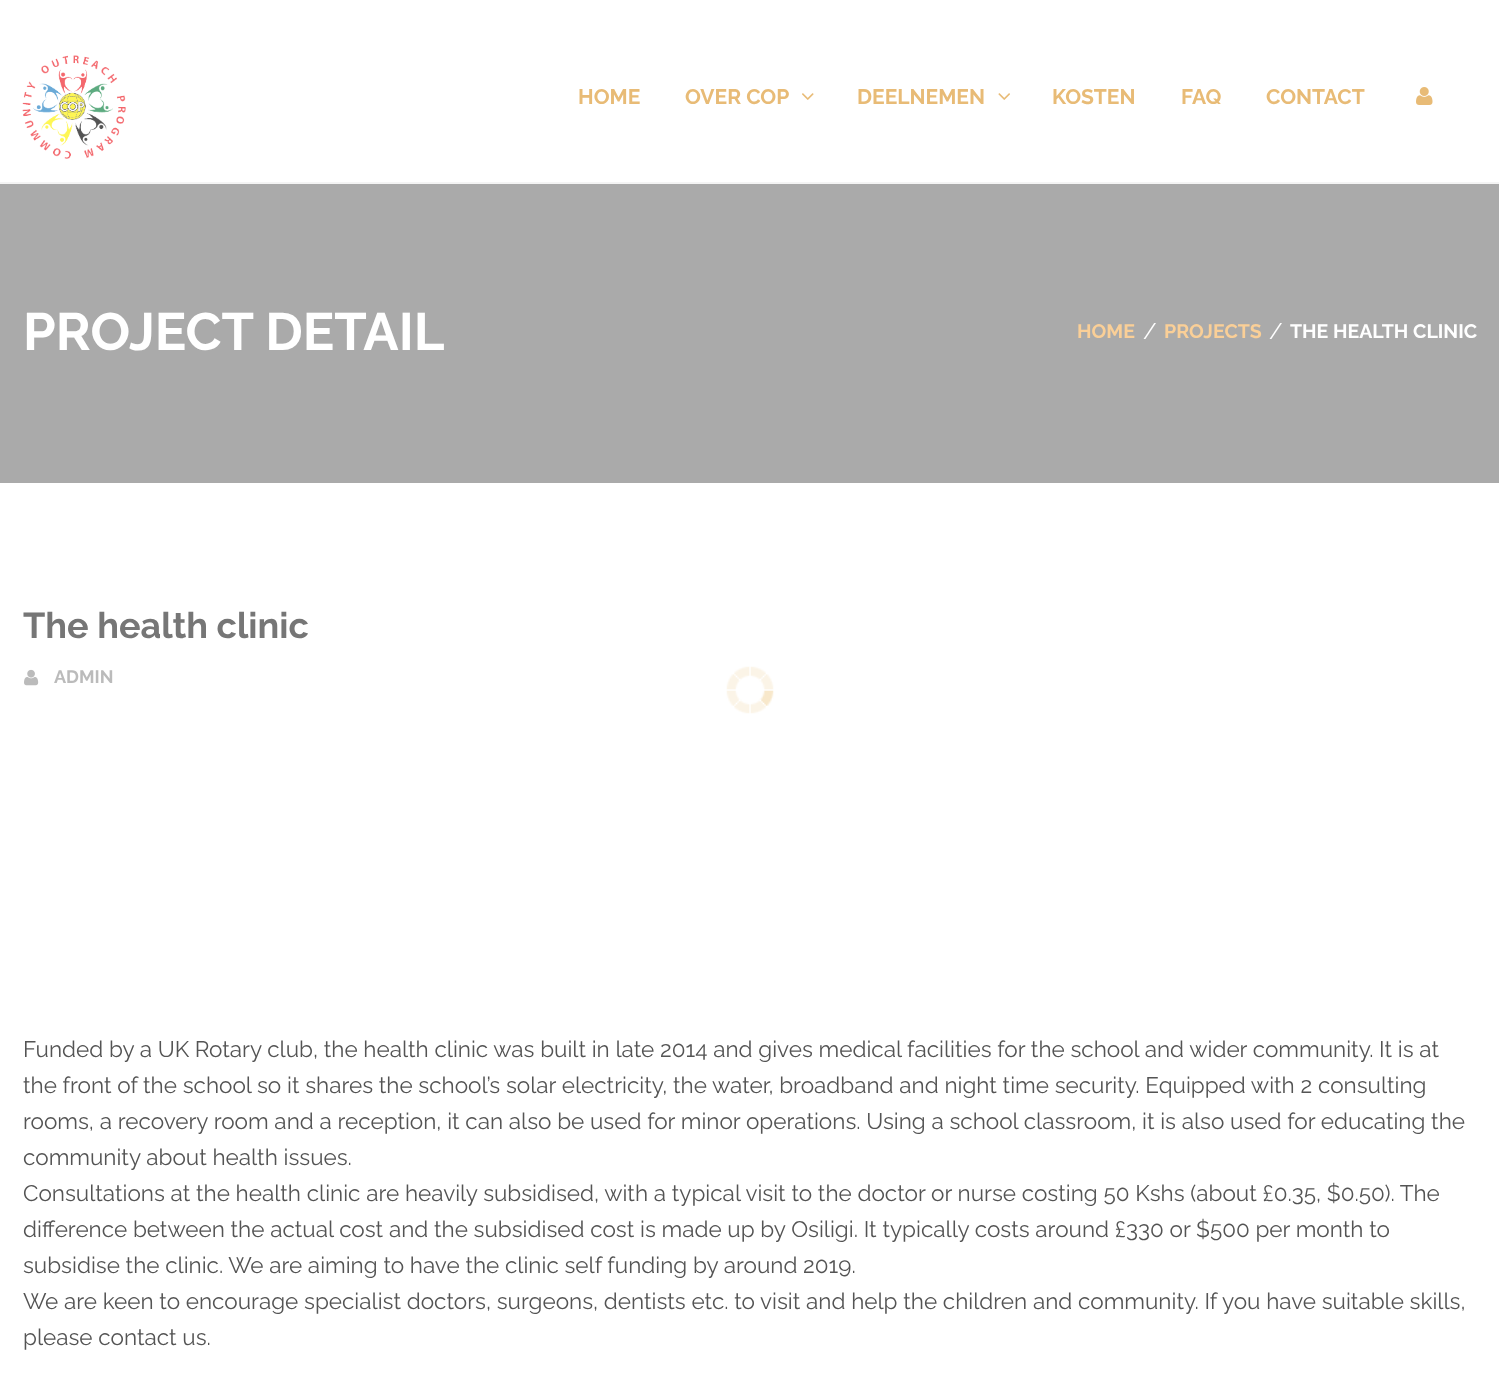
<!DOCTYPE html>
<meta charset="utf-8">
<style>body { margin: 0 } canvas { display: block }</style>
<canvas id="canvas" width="1499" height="1379"></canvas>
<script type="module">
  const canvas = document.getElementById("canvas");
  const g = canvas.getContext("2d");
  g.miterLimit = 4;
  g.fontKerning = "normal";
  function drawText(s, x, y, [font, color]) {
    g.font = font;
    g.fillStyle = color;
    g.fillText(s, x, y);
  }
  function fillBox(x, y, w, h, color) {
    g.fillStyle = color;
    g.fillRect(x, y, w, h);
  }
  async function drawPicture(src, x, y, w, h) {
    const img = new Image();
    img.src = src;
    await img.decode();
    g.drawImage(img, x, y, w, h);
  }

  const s1 = ["bold 21px Raleway", "#E8BB76"];
  const s2 = ["bold 52.5px Raleway", "#FFFFFF"];
  const s3 = ["bold 19.5px Raleway", "#FACF97"];
  const s4 = ["22.5px Raleway", "#FFFFFF"];
  const s5 = ["bold 19.5px Raleway", "#FFFFFF"];
  const s6 = ["bold 36px Raleway", "#767676"];
  const s7 = ["bold 18px Raleway", "#BBBBBB"];
  const s8 = ["22.5px Raleway", "#545454"];

  fillBox(0, 0, 1499, 1379, "#FFFFFF");
  fillBox(0, 182, 1499, 2, "#F4F4F4");
  await drawPicture("pic1.png", 22, 55, 104, 104);
  drawText("HOME", 578, 104, s1);
  drawText("OVER COP", 685, 104, s1);
  await drawPicture("pic2.png", 802, 93, 12, 7);
  drawText("DEELNEMEN", 857, 104, s1);
  await drawPicture("pic3.png", 998, 93, 12, 7);
  drawText("KOSTEN", 1052, 104, s1);
  drawText("FAQ", 1181, 104, s1);
  drawText("CONTACT", 1266, 104, s1);
  await drawPicture("pic4.png", 1416, 87, 17, 18);
  fillBox(0, 184, 1499, 299, "#AAAAAA");
  drawText("PROJECT DETAIL", 23, 350, s2);
  drawText("HOME", 1077, 338, s3);
  drawText("/", 1143, 339, s4);
  drawText("PROJECTS", 1164, 338, s3);
  drawText("/", 1269, 339, s4);
  drawText("THE HEALTH CLINIC", 1290, 338, s5);
  drawText("The health clinic", 23, 638, s6);
  await drawPicture("pic5.png", 24, 669, 15, 17);
  drawText("ADMIN", 54, 683, s7);
  drawText("Funded by a UK Rotary club, the health clinic was built in late 2014 and gives medical facilities for the school and wider community. It is at", 23, 1057, s8);
  drawText("the front of the school so it shares the school’s solar electricity, the water, broadband and night time security. Equipped with 2 consulting", 23, 1093, s8);
  drawText("rooms, a recovery room and a reception, it can also be used for minor operations. Using a school classroom, it is also used for educating the", 23, 1129, s8);
  drawText("community about health issues.", 23, 1165, s8);
  drawText("Consultations at the health clinic are heavily subsidised, with a typical visit to the doctor or nurse costing 50 Kshs (about £0.35, $0.50). The", 23, 1201, s8);
  drawText("difference between the actual cost and the subsidised cost is made up by Osiligi. It typically costs around £330 or $500 per month to", 23, 1237, s8);
  drawText("subsidise the clinic. We are aiming to have the clinic self funding by around 2019.", 23, 1273, s8);
  drawText("We are keen to encourage specialist doctors, surgeons, dentists etc. to visit and help the children and community. If you have suitable skills,", 23, 1309, s8);
  drawText("please contact us.", 23, 1345, s8);
  await drawPicture("pic6.png", 726, 666, 48, 48);
</script>
